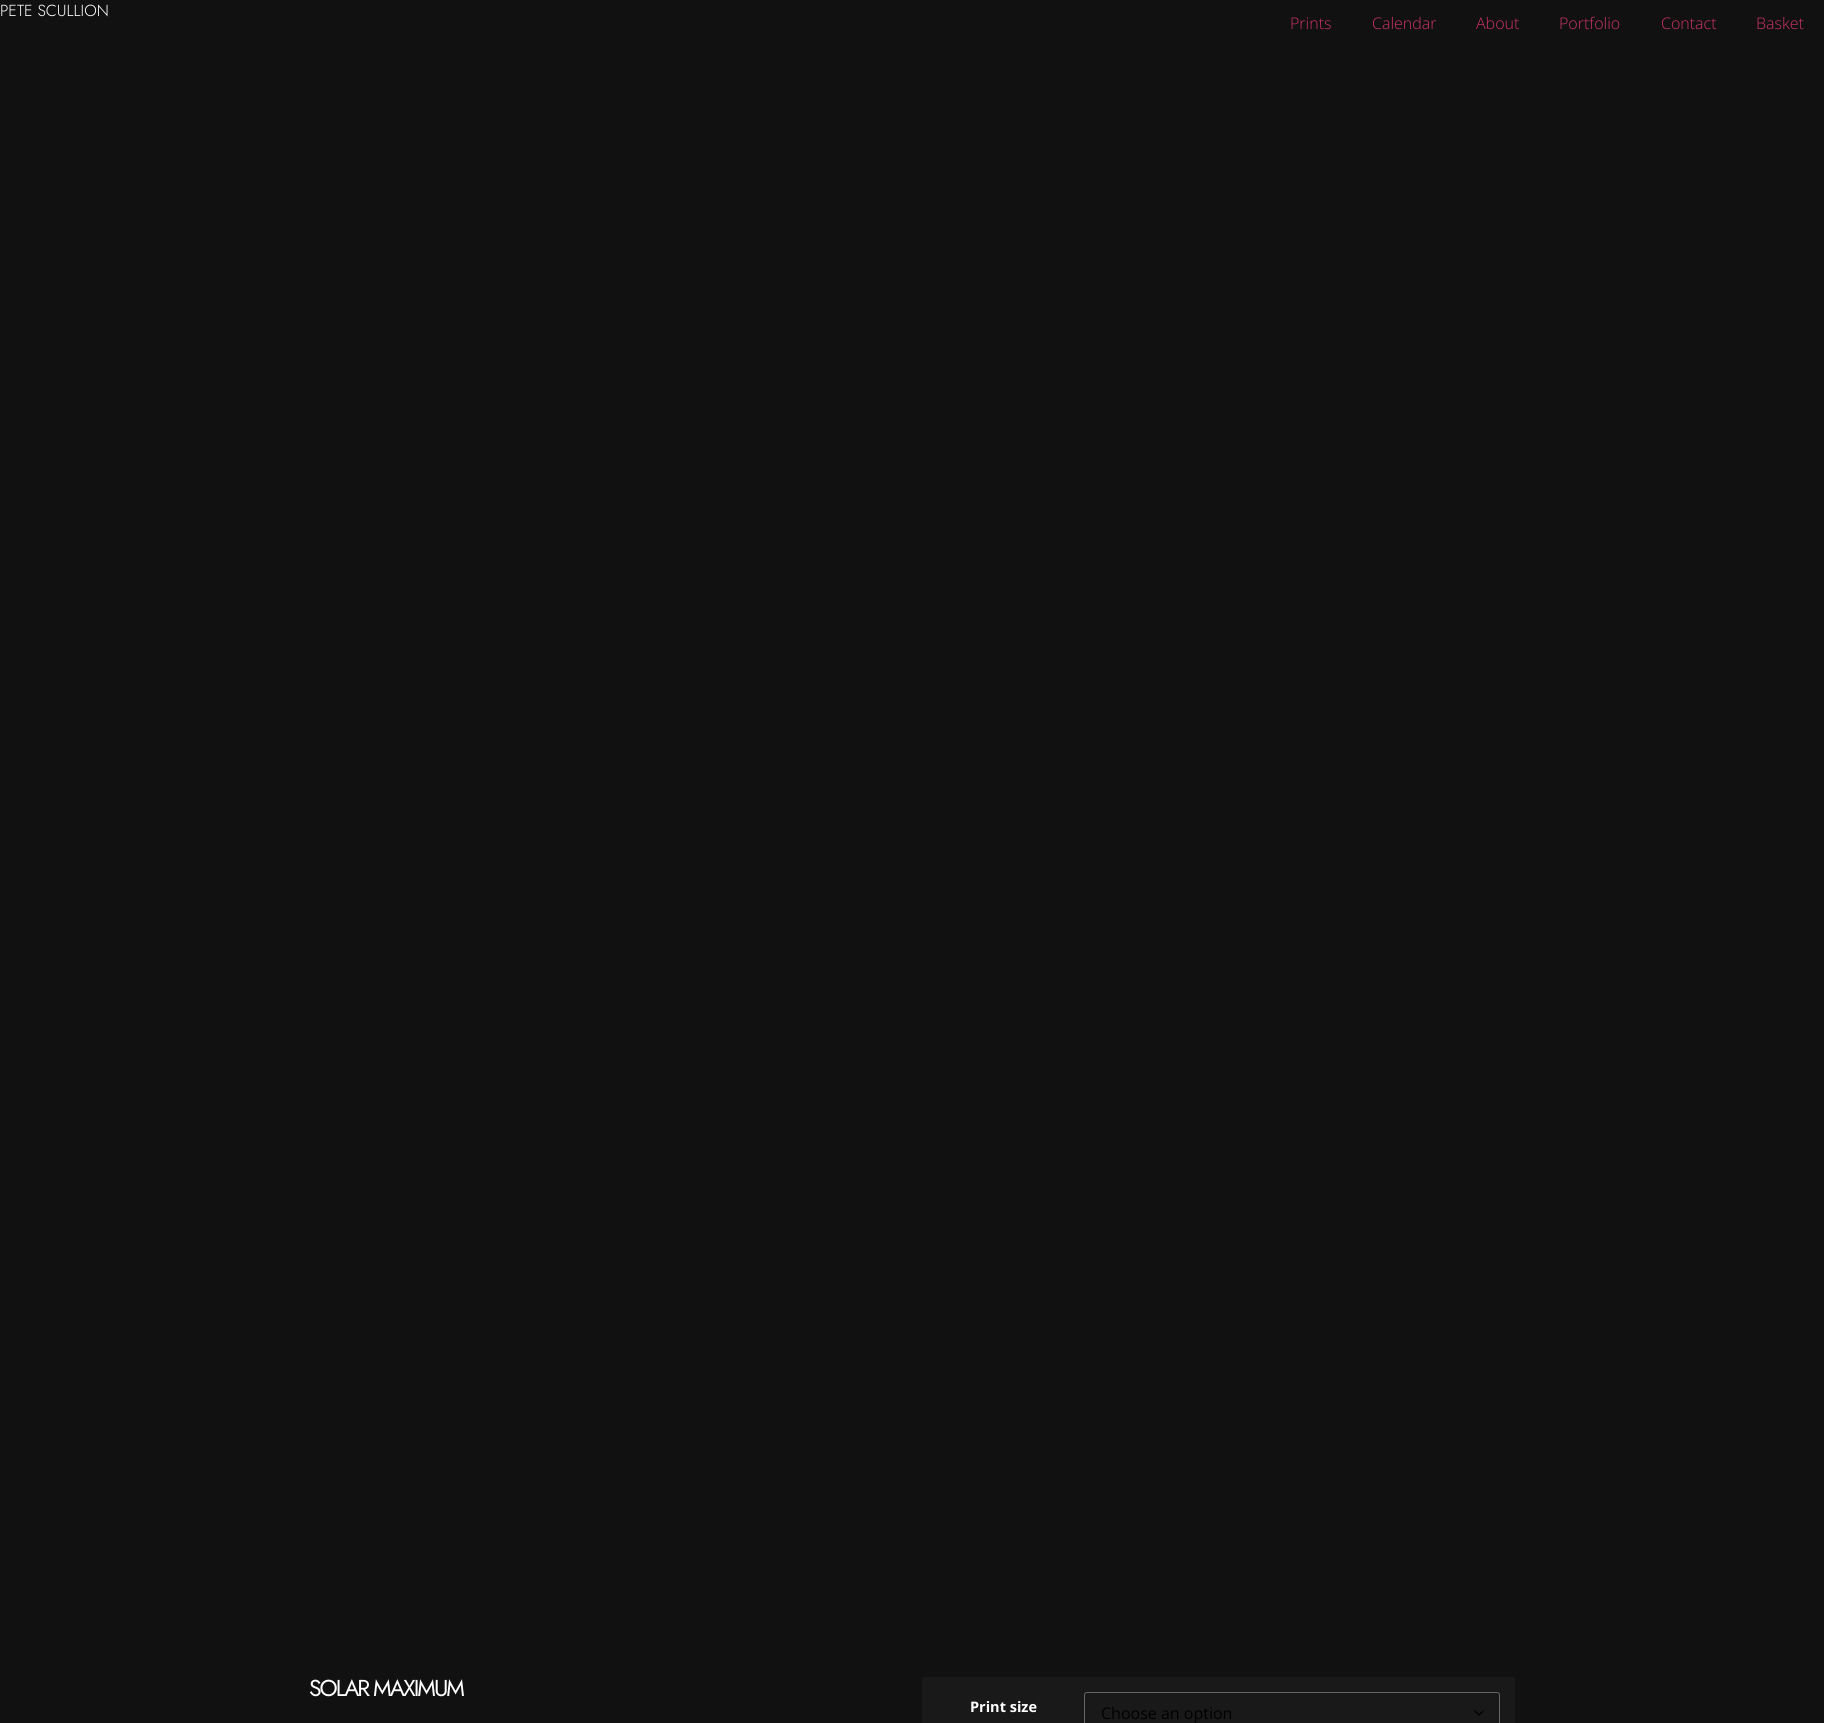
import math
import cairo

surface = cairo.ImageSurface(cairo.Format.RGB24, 1824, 1723)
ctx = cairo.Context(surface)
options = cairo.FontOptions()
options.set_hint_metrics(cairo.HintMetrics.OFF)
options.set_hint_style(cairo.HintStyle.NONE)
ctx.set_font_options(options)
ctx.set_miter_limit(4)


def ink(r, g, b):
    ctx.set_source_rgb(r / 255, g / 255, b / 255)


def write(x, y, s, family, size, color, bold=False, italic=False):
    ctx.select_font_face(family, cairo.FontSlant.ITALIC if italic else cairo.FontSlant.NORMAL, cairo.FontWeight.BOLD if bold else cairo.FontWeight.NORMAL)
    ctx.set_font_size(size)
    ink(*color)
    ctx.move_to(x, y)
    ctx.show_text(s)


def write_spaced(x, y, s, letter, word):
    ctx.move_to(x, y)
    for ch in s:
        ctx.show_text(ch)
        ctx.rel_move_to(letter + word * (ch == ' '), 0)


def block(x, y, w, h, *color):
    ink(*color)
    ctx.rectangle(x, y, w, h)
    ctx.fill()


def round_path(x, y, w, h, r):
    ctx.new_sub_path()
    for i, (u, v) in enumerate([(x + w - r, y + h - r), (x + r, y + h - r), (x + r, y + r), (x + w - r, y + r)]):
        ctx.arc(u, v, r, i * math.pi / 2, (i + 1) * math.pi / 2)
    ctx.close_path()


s1 = dict(family="Jost Light", size=16, color=(255, 255, 255))
s2 = dict(family="Open Sans Light", size=16, color=(204, 51, 102))
s3 = dict(family="Open Sans", size=14.5, color=(255, 255, 255), bold=True)
s4 = dict(family="Open Sans", size=16, color=(0, 0, 0))

ink(17, 17, 17)
ctx.paint()
write(0, 16, "PETE SCULLION", **s1)
write(1290, 29, "Prints", **s2)
write(1372, 29, "Calendar", **s2)
write(1476, 29, "About", **s2)
write(1559, 29, "Portfolio", **s2)
write(1661, 29, "Contact", **s2)
write(1756, 29, "Basket", **s2)
ctx.select_font_face("Jost")
ctx.set_font_size(23)
ink(255, 255, 255)
write_spaced(309, 1696, "SOLAR MAXIMUM", -2, 0)
block(922, 1677, 593, 46, 25, 25, 25)
write(970, 1712, "Print size", **s3)
ctx.new_path()
ctx.move_to(1475, 1711)
ctx.line_to(1479, 1715)
ctx.line_to(1483, 1711)
ink(0, 0, 0)
ctx.set_line_width(1.3)
ctx.set_line_cap(cairo.LineCap.ROUND)
ctx.set_line_join(cairo.LineJoin.ROUND)
ctx.stroke()
round_path(1084.5, 1692.5, 415, 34, 2.5)
ink(102, 102, 102)
ctx.set_line_width(1)
ctx.set_line_cap(cairo.LineCap.BUTT)
ctx.set_line_join(cairo.LineJoin.MITER)
ctx.stroke()
write(1101, 1719, "Choose an option", **s4)
surface.write_to_png("screenshot.png")
